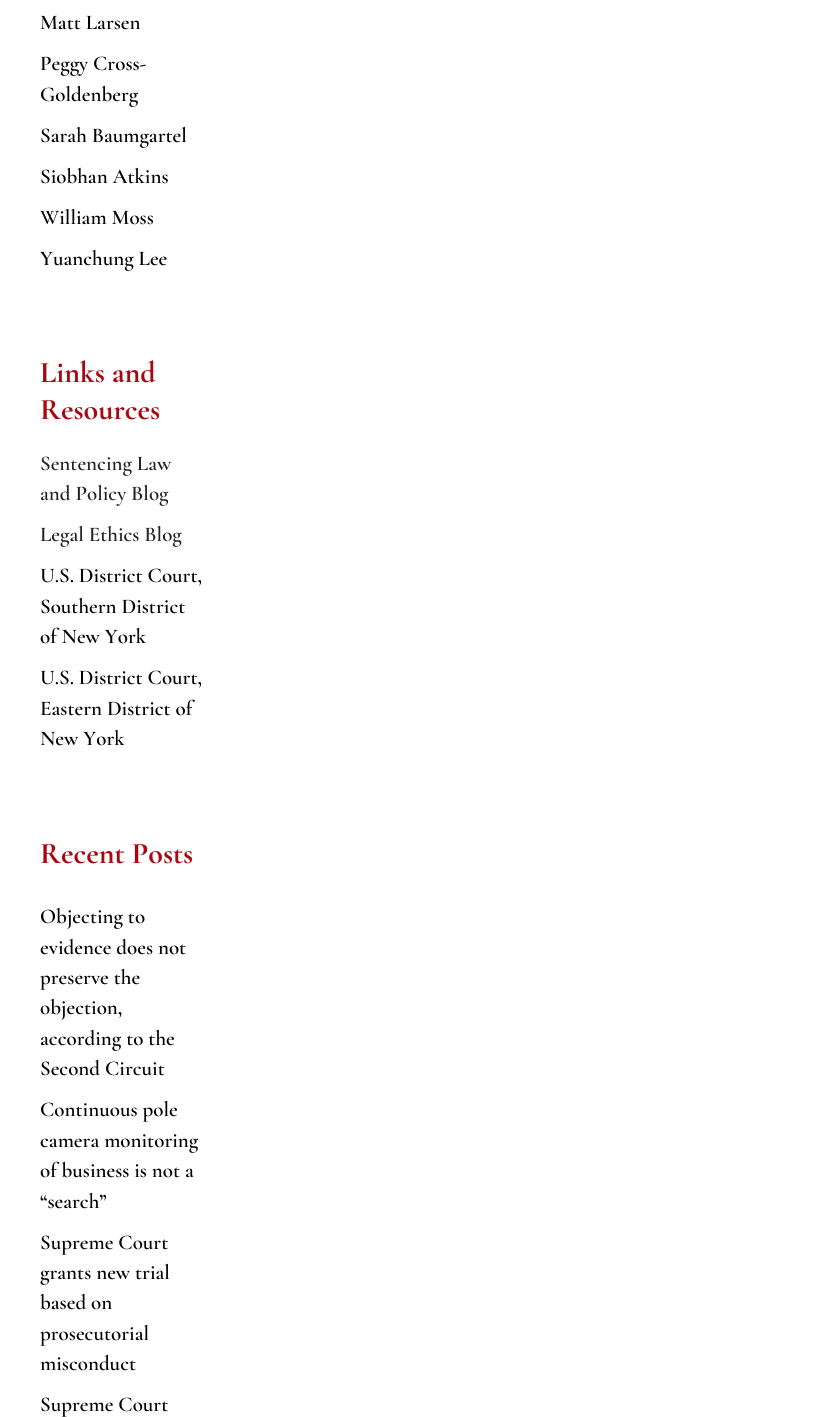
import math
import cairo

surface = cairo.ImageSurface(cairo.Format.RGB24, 813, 1417)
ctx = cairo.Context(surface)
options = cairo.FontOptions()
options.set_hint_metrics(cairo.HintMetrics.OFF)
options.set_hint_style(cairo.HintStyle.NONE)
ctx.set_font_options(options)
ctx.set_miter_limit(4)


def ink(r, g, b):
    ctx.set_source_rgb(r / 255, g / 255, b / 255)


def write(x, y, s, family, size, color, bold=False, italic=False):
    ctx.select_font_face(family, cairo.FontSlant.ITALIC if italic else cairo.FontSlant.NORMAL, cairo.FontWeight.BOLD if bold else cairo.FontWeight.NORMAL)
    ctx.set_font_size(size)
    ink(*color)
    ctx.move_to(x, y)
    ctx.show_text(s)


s1 = dict(family="Cormorant Garamond SemiBold", size=21, color=(0, 0, 0))
s2 = dict(family="Cormorant Garamond", size=30, color=(170, 8, 17), bold=True)
s3 = dict(family="Cormorant Garamond SemiBold", size=21, color=(34, 34, 34))

ink(255, 255, 255)
ctx.paint()
write(40, 29, "Matt Larsen", **s1)
write(40, 70, "Peggy Cross-", **s1)
write(40, 101, "Goldenberg", **s1)
write(40, 142, "Sarah Baumgartel", **s1)
write(40, 183, "Siobhan Atkins", **s1)
write(40, 224, "William Moss", **s1)
write(40, 265, "Yuanchung Lee", **s1)
write(40, 382, "Links and", **s2)
write(40, 419, "Resources", **s2)
write(40, 470, "Sentencing Law", **s3)
write(40, 500, "and Policy Blog", **s3)
write(40, 541, "Legal Ethics Blog", **s3)
write(40, 582, "U.S. District Court,", **s1)
write(40, 613, "Southern District", **s1)
write(40, 643, "of New York", **s1)
write(40, 684, "U.S. District Court,", **s1)
write(40, 715, "Eastern District of", **s1)
write(40, 745, "New York", **s1)
write(40, 863, "Recent Posts", **s2)
write(40, 923, "Objecting to", **s1)
write(40, 954, "evidence does not", **s1)
write(40, 984, "preserve the", **s1)
write(40, 1014, "objection,", **s1)
write(40, 1045, "according to the", **s1)
write(40, 1075, "Second Circuit", **s1)
write(40, 1116, "Continuous pole", **s1)
write(40, 1147, "camera monitoring", **s1)
write(40, 1177, "of business is not a", **s1)
write(40, 1208, "“search”", **s1)
write(40, 1249, "Supreme Court", **s1)
write(40, 1279, "grants new trial", **s1)
write(40, 1309, "based on", **s1)
write(40, 1340, "prosecutorial", **s1)
write(40, 1370, "misconduct", **s1)
write(40, 1411, "Supreme Court", **s1)
surface.write_to_png("screenshot.png")
